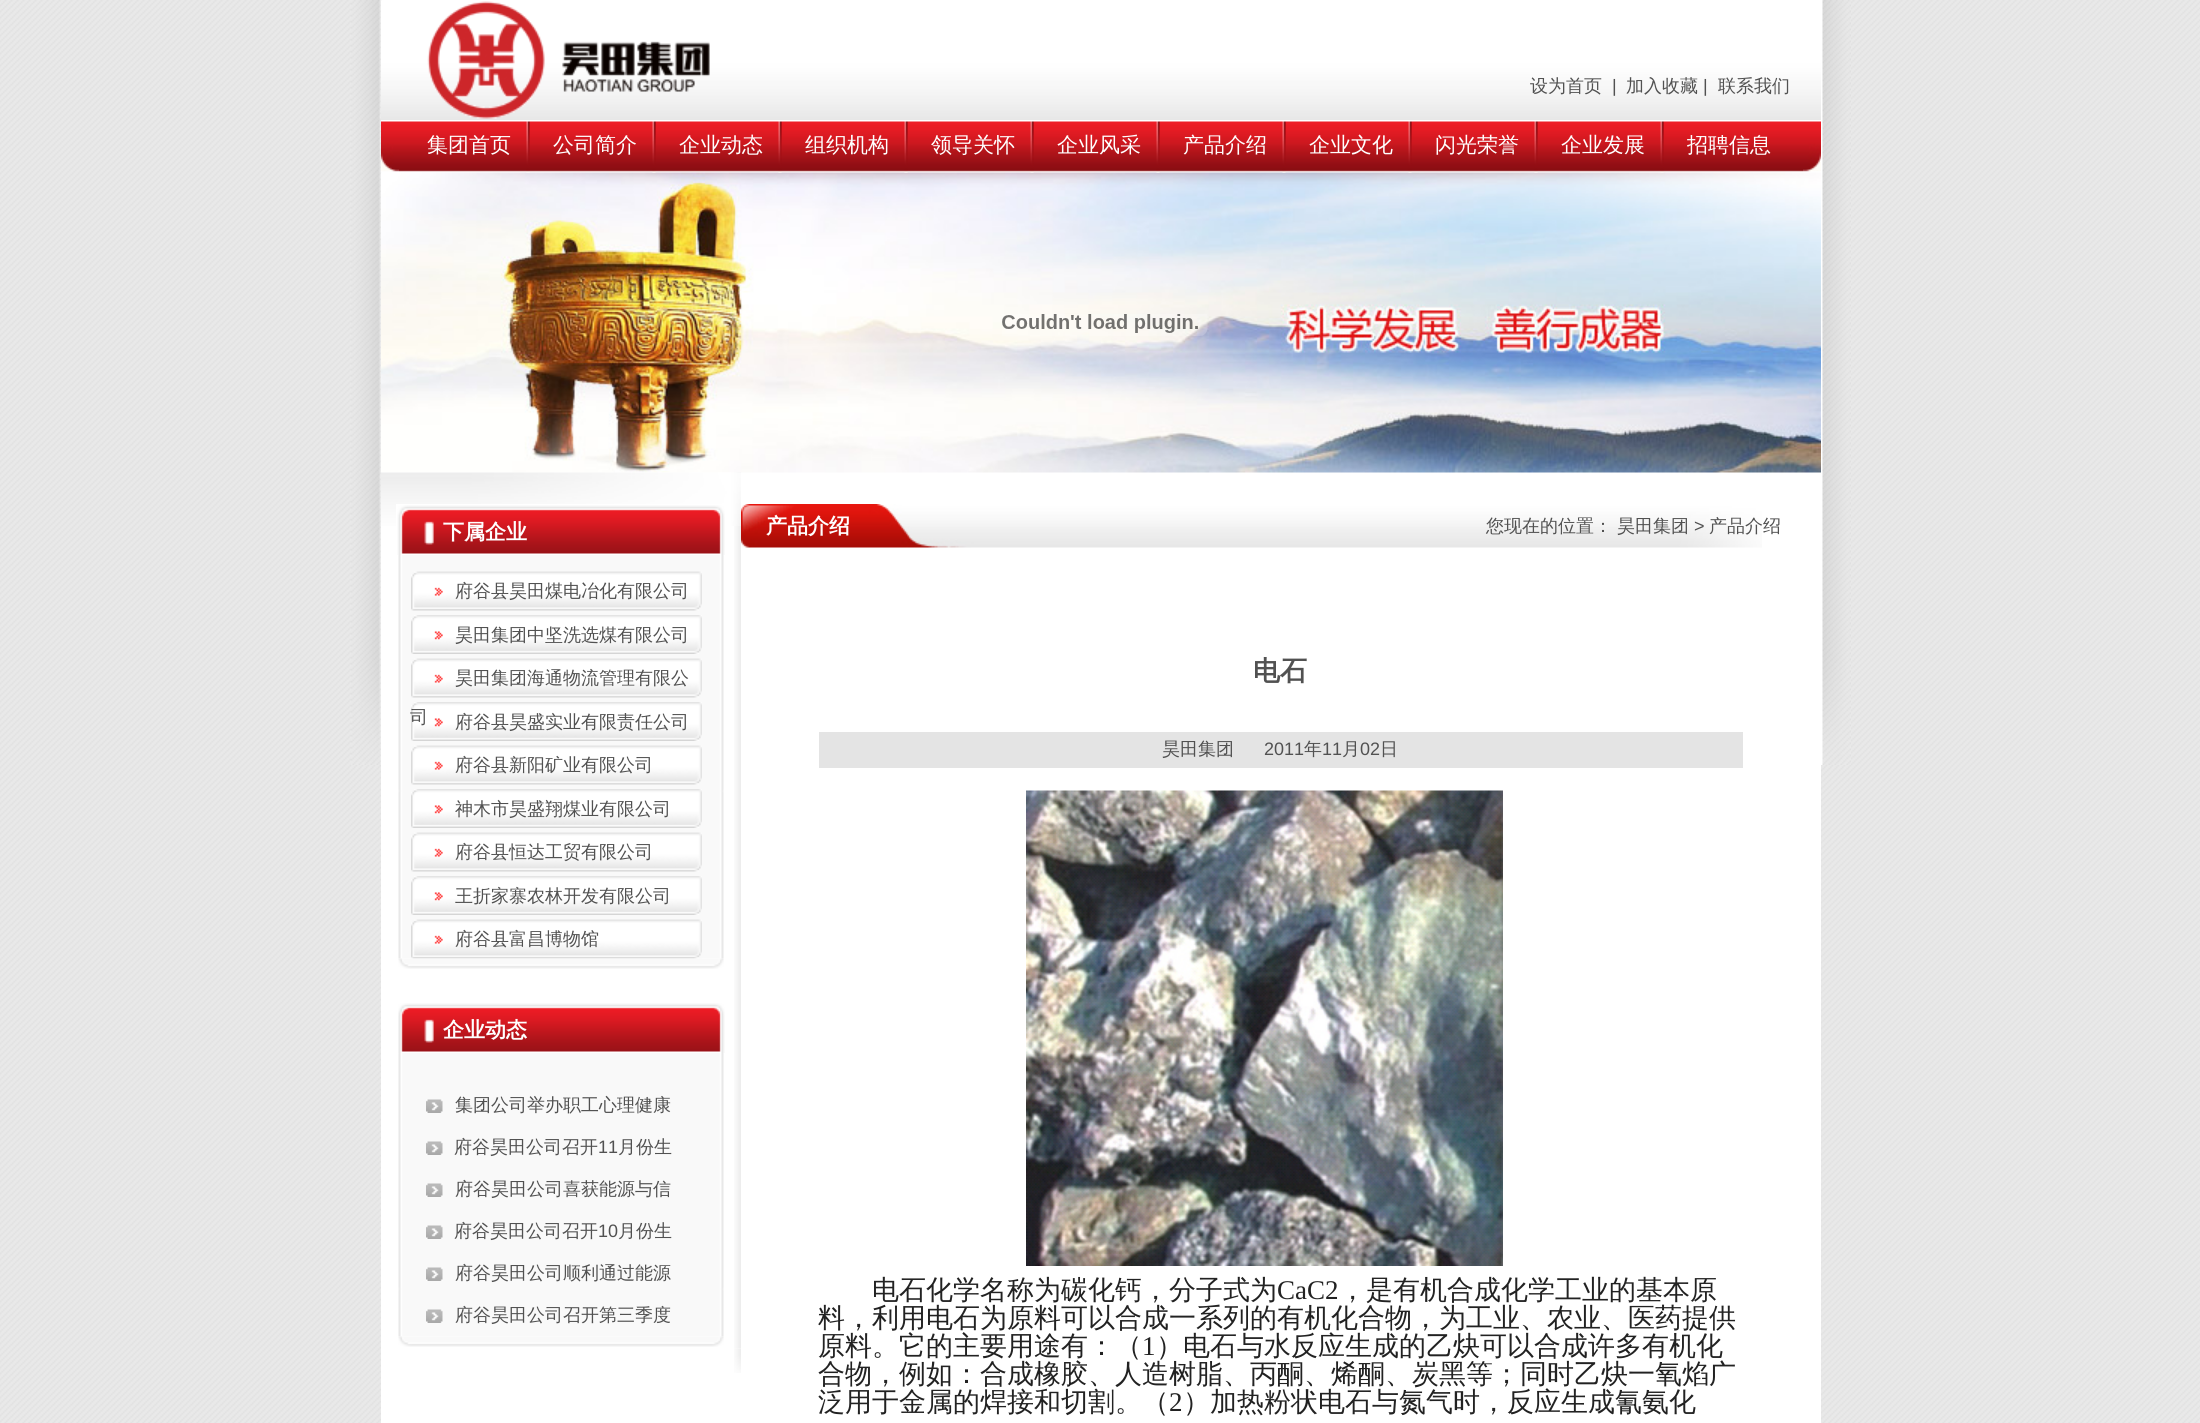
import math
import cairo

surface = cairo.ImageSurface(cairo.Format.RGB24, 2200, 1423)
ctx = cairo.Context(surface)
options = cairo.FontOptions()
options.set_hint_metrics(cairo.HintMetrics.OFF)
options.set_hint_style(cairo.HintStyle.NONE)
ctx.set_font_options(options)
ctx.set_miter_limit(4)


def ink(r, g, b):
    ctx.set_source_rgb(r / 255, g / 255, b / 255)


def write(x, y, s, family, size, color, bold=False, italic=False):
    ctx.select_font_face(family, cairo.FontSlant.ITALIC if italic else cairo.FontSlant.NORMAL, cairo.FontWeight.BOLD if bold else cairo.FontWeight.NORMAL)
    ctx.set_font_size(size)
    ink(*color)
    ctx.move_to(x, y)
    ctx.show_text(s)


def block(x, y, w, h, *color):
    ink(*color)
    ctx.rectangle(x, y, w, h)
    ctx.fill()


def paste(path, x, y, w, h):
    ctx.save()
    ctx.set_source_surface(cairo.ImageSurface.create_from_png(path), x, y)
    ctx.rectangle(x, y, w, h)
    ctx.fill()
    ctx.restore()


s1 = dict(family="WenQuanYi Zen Hei Medium", size=18, color=(81, 81, 81))
s2 = dict(family="Liberation Sans", size=18, color=(81, 81, 81))
s3 = dict(family="WenQuanYi Zen Hei Medium", size=21, color=(255, 255, 255))
s4 = dict(family="WenQuanYi Zen Hei", size=21, color=(255, 255, 255), bold=True)
s5 = dict(family="WenQuanYi Zen Hei", size=27, color=(81, 81, 81), bold=True)
s6 = dict(family="WenQuanYi Zen Hei Medium", size=27, color=(34, 34, 34))
s7 = dict(family="Liberation Serif", size=27, color=(34, 34, 34))

ink(255, 255, 255)
ctx.paint()
paste("pic1.png", 0, 0, 2200, 1423)
paste("pic2.png", 351, 0, 1500, 765)
paste("pic3.png", 381, 1, 1440, 119)
paste("pic4.png", 427, 1, 283, 118)
write(1530, 92, "设为首页", **s1)
write(1612, 92, "|", **s2)
write(1626, 92, "加入收藏", **s1)
write(1703, 92, "|", **s2)
write(1718, 92, "联系我们", **s1)
paste("pic5.png", 381, 120, 18, 52)
paste("pic6.png", 399, 121, 1404, 51)
paste("pic18.png", 381, 172, 1440, 301)
paste("pic7.png", 526, 121, 4, 52)
write(427, 152, "集团首页", **s3)
paste("pic8.png", 652, 121, 4, 52)
write(553, 152, "公司简介", **s3)
paste("pic9.png", 778, 121, 4, 52)
write(679, 152, "企业动态", **s3)
paste("pic10.png", 904, 121, 4, 52)
write(805, 152, "组织机构", **s3)
paste("pic11.png", 1030, 121, 4, 52)
write(931, 152, "领导关怀", **s3)
paste("pic12.png", 1156, 121, 4, 52)
write(1057, 152, "企业风采", **s3)
paste("pic13.png", 1282, 121, 4, 52)
write(1183, 152, "产品介绍", **s3)
paste("pic14.png", 1408, 121, 4, 52)
write(1309, 152, "企业文化", **s3)
paste("pic15.png", 1534, 121, 4, 52)
write(1435, 152, "闪光荣誉", **s3)
paste("pic16.png", 1660, 121, 4, 52)
write(1561, 152, "企业发展", **s3)
write(1687, 152, "招聘信息", **s3)
paste("pic17.png", 1803, 121, 18, 51)
paste("pic19.png", 1002, 314, 206, 22)
block(381, 473, 1440, 950, 255, 255, 255)
paste("pic20.png", 734, 472, 7, 877)
paste("pic21.png", 381, 472, 360, 54)
paste("pic22.png", 396, 504, 329, 51)
write(443, 539, "下属企业", **s4)
paste("pic23.png", 398, 555, 326, 404)
paste("pic24.png", 411, 571, 291, 40)
write(455, 597, "府谷县昊田煤电冶化有限公司", **s1)
paste("pic25.png", 411, 615, 291, 39)
write(455, 641, "昊田集团中坚洗选煤有限公司", **s1)
paste("pic24.png", 411, 658, 291, 40)
write(455, 684, "昊田集团海通物流管理有限公", **s1)
paste("pic25.png", 411, 702, 291, 39)
write(410, 723, "司", **s1)
write(455, 728, "府谷县昊盛实业有限责任公司", **s1)
paste("pic24.png", 411, 745, 291, 40)
write(455, 771, "府谷县新阳矿业有限公司", **s1)
paste("pic25.png", 411, 789, 291, 39)
write(455, 815, "神木市昊盛翔煤业有限公司", **s1)
paste("pic24.png", 411, 832, 291, 40)
write(455, 858, "府谷县恒达工贸有限公司", **s1)
paste("pic25.png", 411, 876, 291, 39)
write(455, 902, "王折家寨农林开发有限公司", **s1)
paste("pic26.png", 411, 919, 291, 40)
write(455, 945, "府谷县富昌博物馆", **s1)
paste("pic27.png", 398, 958, 326, 11)
paste("pic28.png", 398, 1003, 327, 50)
write(443, 1037, "企业动态", **s4)
paste("pic29.png", 398, 1053, 326, 284)
paste("pic30.png", 426, 1099, 17, 14)
write(455, 1111, "集团公司举办职工心理健康", **s1)
paste("pic30.png", 426, 1141, 17, 14)
write(454, 1153, "府谷昊田公司召开", **s1)
write(598, 1153, "11", **s2)
write(618, 1153, "月份生", **s1)
paste("pic30.png", 426, 1183, 17, 14)
write(455, 1195, "府谷昊田公司喜获能源与信", **s1)
paste("pic30.png", 426, 1225, 17, 14)
write(454, 1237, "府谷昊田公司召开", **s1)
write(598, 1237, "10", **s2)
write(618, 1237, "月份生", **s1)
paste("pic30.png", 426, 1267, 17, 14)
write(455, 1279, "府谷昊田公司顺利通过能源", **s1)
paste("pic30.png", 426, 1309, 17, 14)
write(455, 1321, "府谷昊田公司召开第三季度", **s1)
paste("pic31.png", 398, 1336, 326, 11)
paste("pic32.png", 734, 1348, 7, 25)
paste("pic33.png", 741, 504, 1021, 44)
write(766, 533, "产品介绍", **s4)
write(1486, 532, "您现在的位置：", **s1)
write(1617, 532, "昊田集团", **s1)
write(1694, 532, ">", **s2)
write(1709, 532, "产品介绍", **s1)
write(1253, 680, "电石", **s5)
block(819, 732, 924, 36, 228, 228, 228)
write(1162, 755, "昊田集团", **s1)
write(1264, 755, "2011", **s2)
write(1304, 755, "年", **s1)
write(1322, 755, "11", **s2)
write(1342, 755, "月", **s1)
write(1360, 755, "02", **s2)
write(1380, 755, "日", **s1)
paste("pic34.png", 1026, 790, 477, 476)
write(872, 1299, "电石化学名称为碳化钙，分子式为", **s6)
write(1277, 1299, "CaC2", **s7)
write(1339, 1299, "，是有机合成化学工业的基本原", **s6)
write(818, 1327, "料，利用电石为原料可以合成一系列的有机化合物，为工业、农业、医药提供", **s6)
write(818, 1355, "原料。它的主要用途有：（", **s6)
write(1142, 1355, "1", **s7)
write(1156, 1355, "）电石与水反应生成的乙炔可以合成许多有机化", **s6)
write(818, 1383, "合物，例如：合成橡胶、人造树脂、丙酮、烯酮、炭黑等；同时乙炔一氧焰广", **s6)
write(818, 1411, "泛用于金属的焊接和切割。（", **s6)
write(1169, 1411, "2", **s7)
write(1183, 1411, "）加热粉状电石与氮气时，反应生成氰氨化", **s6)
surface.write_to_png("screenshot.png")
